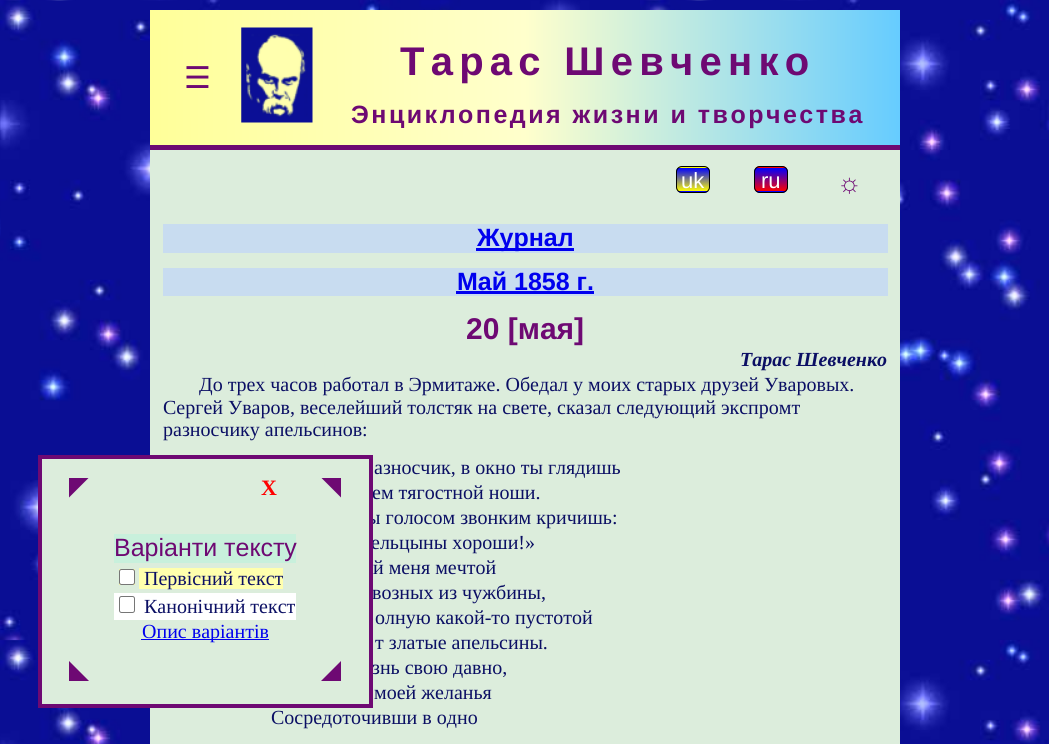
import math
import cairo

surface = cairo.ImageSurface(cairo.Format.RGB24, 1049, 744)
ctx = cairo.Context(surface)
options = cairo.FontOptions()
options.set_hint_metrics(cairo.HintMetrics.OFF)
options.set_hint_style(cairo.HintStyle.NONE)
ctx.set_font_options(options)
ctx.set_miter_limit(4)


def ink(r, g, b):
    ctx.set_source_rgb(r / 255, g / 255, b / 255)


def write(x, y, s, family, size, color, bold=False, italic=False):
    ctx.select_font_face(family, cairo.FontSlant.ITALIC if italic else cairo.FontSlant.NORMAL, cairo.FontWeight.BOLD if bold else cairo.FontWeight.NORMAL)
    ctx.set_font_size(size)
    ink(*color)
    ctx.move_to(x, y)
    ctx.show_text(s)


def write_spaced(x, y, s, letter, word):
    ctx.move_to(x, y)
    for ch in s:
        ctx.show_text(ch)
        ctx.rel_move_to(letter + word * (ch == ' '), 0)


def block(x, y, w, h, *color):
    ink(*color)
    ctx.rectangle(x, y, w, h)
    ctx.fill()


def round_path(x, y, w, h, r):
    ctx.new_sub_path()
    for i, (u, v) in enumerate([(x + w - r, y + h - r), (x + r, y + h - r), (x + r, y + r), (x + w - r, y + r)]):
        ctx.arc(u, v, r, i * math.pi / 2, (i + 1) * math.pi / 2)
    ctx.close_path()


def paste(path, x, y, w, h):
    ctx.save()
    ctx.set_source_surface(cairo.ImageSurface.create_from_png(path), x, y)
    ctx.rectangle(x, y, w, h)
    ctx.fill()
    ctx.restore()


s1 = dict(family="DejaVu Sans", size=30, color=(110, 9, 115))
s2 = dict(family="Liberation Sans", size=22, color=(255, 255, 255))
s3 = dict(family="Liberation Serif", size=27, color=(110, 9, 115), bold=True)
s4 = dict(family="Liberation Sans", size=25, color=(0, 0, 238), bold=True)
s5 = dict(family="Liberation Sans", size=30, color=(110, 9, 115), bold=True)
s6 = dict(family="Liberation Serif", size=20, color=(11, 15, 100), bold=True, italic=True)
s7 = dict(family="Liberation Serif", size=20, color=(11, 15, 100))
s8 = dict(family="Liberation Serif", size=22, color=(255, 0, 0), bold=True)
s9 = dict(family="Liberation Sans", size=25, color=(110, 9, 115))
s10 = dict(family="Liberation Serif", size=20, color=(0, 0, 238))

ink(255, 255, 255)
ctx.paint()
paste("pic1.png", 0, 0, 1049, 744)
gradient = cairo.LinearGradient(150, 78, 900, 77)
gradient.add_color_stop_rgba(0, 1, 1, 0.6, 1)
gradient.add_color_stop_rgba(0.5, 1, 1, 0.8, 1)
gradient.add_color_stop_rgba(1, 0.4, 0.8, 1, 1)
ctx.set_source(gradient)
ctx.rectangle(150, 10, 750, 135)
ctx.fill()
block(150, 145, 750, 5, 110, 9, 115)
write(184, 88, "☰", **s1)
paste("pic2.png", 241, 27, 72, 96)
ctx.select_font_face("Liberation Sans", cairo.FontSlant.NORMAL, cairo.FontWeight.BOLD)
ctx.set_font_size(40)
write_spaced(400, 75, "Тарас Шевченко", 6.25, 0)
ctx.set_font_size(25)
write_spaced(351, 123, "Энциклопедия жизни и творчества", 2.5, 0)
block(150, 150, 750, 594, 220, 237, 220)
ctx.save()
round_path(676, 166, 34, 27, 6)
ctx.clip()
gradient = cairo.LinearGradient(693, 144, 693, 168)
gradient.add_color_stop_rgba(0, 0, 0, 1, 1)
gradient.add_color_stop_rgba(1, 1, 1, 0, 1)
ctx.set_source(gradient)
ctx.rectangle(676, 166, 34, 2)
ctx.fill()
gradient = cairo.LinearGradient(693, 168, 693, 191)
gradient.add_color_stop_rgba(0, 0, 0, 1, 1)
gradient.add_color_stop_rgba(1, 1, 1, 0, 1)
ctx.set_source(gradient)
ctx.rectangle(676, 168, 34, 23)
ctx.fill()
gradient = cairo.LinearGradient(693, 191, 693, 215)
gradient.add_color_stop_rgba(0, 0, 0, 1, 1)
gradient.add_color_stop_rgba(1, 1, 1, 0, 1)
ctx.set_source(gradient)
ctx.rectangle(676, 191, 34, 2)
ctx.fill()
ctx.restore()
round_path(676.5, 166.5, 33, 26, 5.5)
ink(0, 0, 0)
ctx.set_line_width(1)
ctx.stroke()
write(681, 188, "uk", **s2)
ctx.save()
round_path(754, 166, 34, 27, 6)
ctx.clip()
gradient = cairo.LinearGradient(771, 144, 771, 168)
gradient.add_color_stop_rgba(0, 0, 0, 1, 1)
gradient.add_color_stop_rgba(1, 1, 0, 0, 1)
ctx.set_source(gradient)
ctx.rectangle(754, 166, 34, 2)
ctx.fill()
gradient = cairo.LinearGradient(771, 168, 771, 191)
gradient.add_color_stop_rgba(0, 0, 0, 1, 1)
gradient.add_color_stop_rgba(1, 1, 0, 0, 1)
ctx.set_source(gradient)
ctx.rectangle(754, 168, 34, 23)
ctx.fill()
gradient = cairo.LinearGradient(771, 191, 771, 215)
gradient.add_color_stop_rgba(0, 0, 0, 1, 1)
gradient.add_color_stop_rgba(1, 1, 0, 0, 1)
ctx.set_source(gradient)
ctx.rectangle(754, 191, 34, 2)
ctx.fill()
ctx.restore()
round_path(754.5, 166.5, 33, 26, 5.5)
ink(0, 0, 0)
ctx.stroke()
write(761, 188, "ru", **s2)
write(837, 192, "☼", **s3)
block(163, 224, 725, 29, 200, 220, 240)
block(476, 248, 98, 3, 0, 0, 238)
write(477, 246, "Журнал", **s4)
block(163, 268, 725, 28, 200, 220, 240)
write(457, 290, "Май 1858 г.", **s4)
block(456, 291, 138, 3, 0, 0, 238)
write(466, 339, "20 [мая]", **s5)
write(740, 366, "Тарас Шевченко", **s6)
write(199, 391, "До трех часов работал в Эрмитаже. Обедал у моих старых друзей Уваровых.", **s7)
write(163, 414, "Сергей Уваров, веселейший толстяк на свете, сказал следующий экспромт", **s7)
write(163, 436, "разносчику апельсинов:", **s7)
write(374, 474, "азносчик, в окно ты глядишь", **s7)
write(372, 499, "ем тягостной ноши.", **s7)
write(367, 524, "ы голосом звонким кричишь:", **s7)
write(371, 549, "ельцыны хороши!»", **s7)
write(372, 599, "возных из чужбины,", **s7)
write(372, 674, "знь свою давно,", **s7)
ink(220, 237, 220)
ctx.rectangle(40, 457, 331, 249)
ctx.fill_preserve()
ink(110, 9, 115)
ctx.set_line_width(4)
ctx.stroke()
ctx.save()
ctx.rectangle(69, 478, 20, 20)
ctx.clip()
ctx.new_path()
ctx.move_to(69, 497.5)
ctx.line_to(69, 477.5)
ctx.line_to(89, 477.5)
ctx.close_path()
ctx.fill()
ctx.restore()
write(261, 495, "X", **s8)
ctx.save()
ctx.rectangle(321, 478, 20, 20)
ctx.clip()
ink(110, 9, 115)
ctx.new_path()
ctx.move_to(341, 497.5)
ctx.line_to(321, 477.5)
ctx.line_to(341, 477.5)
ctx.close_path()
ctx.fill()
ctx.restore()
block(114, 534, 182, 29, 200, 240, 220)
write(114, 556, "Варіанти тексту", **s9)
block(119, 569, 16, 16, 255, 255, 173)
block(139, 568, 144, 21, 255, 255, 173)
ink(255, 255, 255)
round_path(119.5, 569.5, 15, 15, 2)
ctx.fill_preserve()
ink(118, 118, 118)
ctx.set_line_width(1)
ctx.stroke()
write(144, 585, "Первісний текст", **s7)
block(114, 593, 182, 27, 255, 255, 255)
round_path(119.5, 596.5, 15, 16, 2)
ink(118, 118, 118)
ctx.stroke()
write(144, 613, "Канонічний текст", **s7)
block(141, 639, 128, 1, 0, 0, 238)
write(142, 638, "Опис варіантів", **s10)
ink(110, 9, 115)
ctx.new_path()
ctx.move_to(69, 661)
ctx.line_to(89, 681)
ctx.line_to(69, 681)
ctx.close_path()
ctx.fill()
ctx.new_path()
ctx.move_to(341, 661)
ctx.line_to(341, 681)
ctx.line_to(321, 681)
ctx.close_path()
ctx.fill()
write(373, 574, "й меня мечтой", **s7)
write(375, 624, "олную какой-то пустотой", **s7)
write(375, 649, "т златые апельсины.", **s7)
write(374, 699, "моей желанья", **s7)
write(271, 724, "Сосредоточивши в одно", **s7)
surface.write_to_png("screenshot.png")
